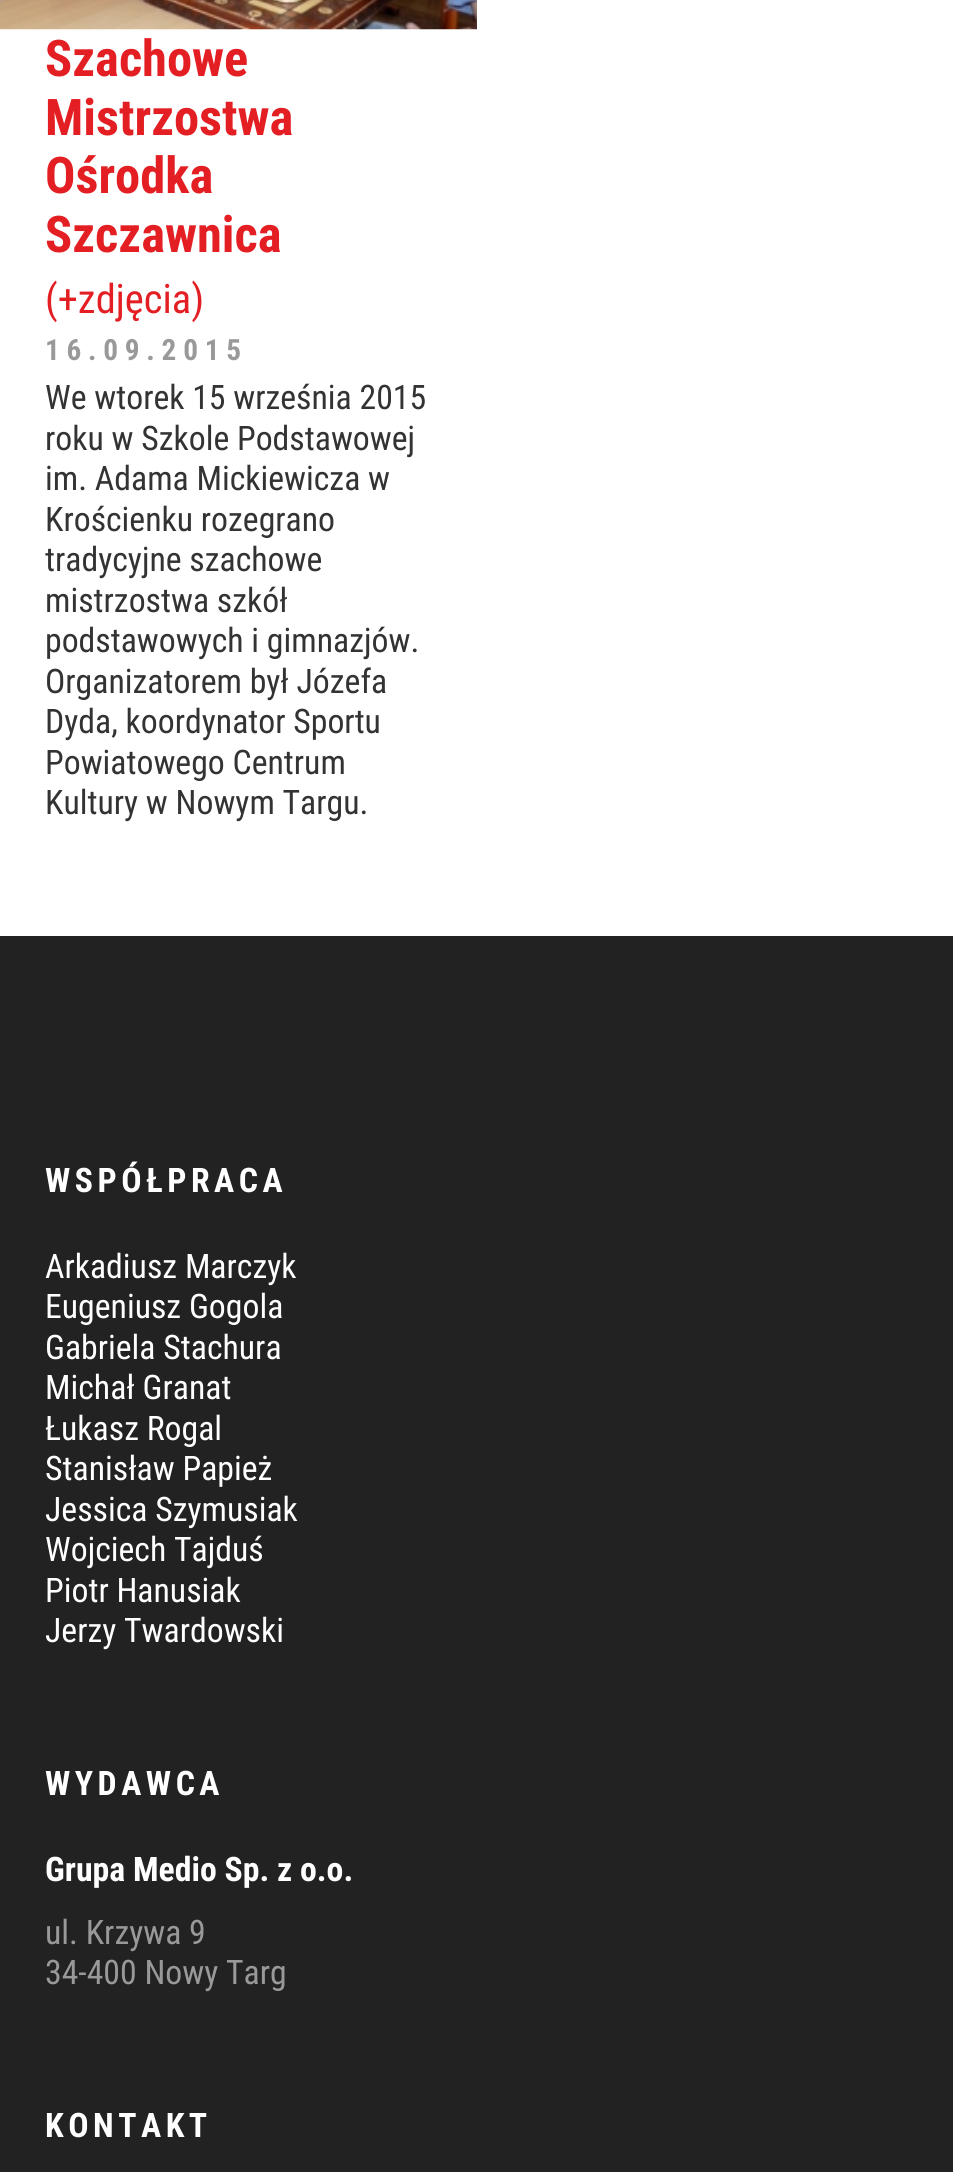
import math
import cairo

surface = cairo.ImageSurface(cairo.Format.RGB24, 953, 2172)
ctx = cairo.Context(surface)
options = cairo.FontOptions()
options.set_hint_metrics(cairo.HintMetrics.OFF)
options.set_hint_style(cairo.HintStyle.NONE)
ctx.set_font_options(options)
ctx.set_miter_limit(4)


def ink(r, g, b):
    ctx.set_source_rgb(r / 255, g / 255, b / 255)


def write(x, y, s, family, size, color, bold=False, italic=False):
    ctx.select_font_face(family, cairo.FontSlant.ITALIC if italic else cairo.FontSlant.NORMAL, cairo.FontWeight.BOLD if bold else cairo.FontWeight.NORMAL)
    ctx.set_font_size(size)
    ink(*color)
    ctx.move_to(x, y)
    ctx.show_text(s)


def write_spaced(x, y, s, letter, word):
    ctx.move_to(x, y)
    for ch in s:
        ctx.show_text(ch)
        ctx.rel_move_to(letter + word * (ch == ' '), 0)


def block(x, y, w, h, *color):
    ink(*color)
    ctx.rectangle(x, y, w, h)
    ctx.fill()


def paste(path, x, y, w, h):
    ctx.save()
    ctx.set_source_surface(cairo.ImageSurface.create_from_png(path), x, y)
    ctx.rectangle(x, y, w, h)
    ctx.fill()
    ctx.restore()


s1 = dict(family="Roboto Condensed", size=50.5, color=(227, 31, 36), bold=True)
s2 = dict(family="Roboto Condensed", size=40.5, color=(227, 31, 36))
s3 = dict(family="Roboto Condensed", size=33.75, color=(51, 51, 51))
s4 = dict(family="Roboto Condensed", size=33.75, color=(255, 255, 255))
s5 = dict(family="Roboto Condensed", size=33.75, color=(255, 255, 255), bold=True)
s6 = dict(family="Roboto Condensed", size=33.75, color=(153, 153, 153))

ink(255, 255, 255)
ctx.paint()
paste("pic1.png", 0, 0, 477, 30)
write(45, 76, "Szachowe", **s1)
write(45, 135, "Mistrzostwa", **s1)
write(45, 193, "Ośrodka", **s1)
write(45, 252, "Szczawnica", **s1)
write(45, 313, "(+zdjęcia)", **s2)
ctx.select_font_face("Roboto Condensed", cairo.FontSlant.NORMAL, cairo.FontWeight.BOLD)
ctx.set_font_size(29.25)
ink(153, 153, 153)
write_spaced(45, 360, "16.09.2015", 6.75, 0)
write(45, 409, "We wtorek 15 września 2015", **s3)
write(45, 450, "roku w Szkole Podstawowej", **s3)
write(45, 490, "im. Adama Mickiewicza w", **s3)
write(45, 531, "Krościenku rozegrano", **s3)
write(45, 571, "tradycyjne szachowe", **s3)
write(45, 612, "mistrzostwa szkół", **s3)
write(45, 652, "podstawowych i gimnazjów.", **s3)
write(45, 693, "Organizatorem był Józefa", **s3)
write(45, 733, "Dyda, koordynator Sportu", **s3)
write(45, 774, "Powiatowego Centrum", **s3)
write(45, 814, "Kultury w Nowym Targu.", **s3)
block(0, 936, 953, 1236, 34, 34, 34)
ctx.select_font_face("Roboto Condensed", cairo.FontSlant.NORMAL, cairo.FontWeight.BOLD)
ink(255, 255, 255)
write_spaced(45, 1192, "WSPÓŁPRACA", 4.5, 0)
write(45, 1278, "Arkadiusz Marczyk", **s4)
write(45, 1318, "Eugeniusz Gogola", **s4)
write(45, 1359, "Gabriela Stachura", **s4)
write(45, 1399, "Michał Granat", **s4)
write(45, 1440, "Łukasz Rogal", **s4)
write(45, 1480, "Stanisław Papież", **s4)
write(45, 1521, "Jessica Szymusiak", **s4)
write(45, 1561, "Wojciech Tajduś", **s4)
write(45, 1602, "Piotr Hanusiak", **s4)
write(45, 1642, "Jerzy Twardowski", **s4)
ctx.select_font_face("Roboto Condensed", cairo.FontSlant.NORMAL, cairo.FontWeight.BOLD)
write_spaced(45, 1795, "WYDAWCA", 4.5, 0)
write(45, 1881, "Grupa Medio Sp. z o.o.", **s5)
write(45, 1944, "ul. Krzywa 9", **s6)
write(45, 1984, "34-400 Nowy Targ", **s6)
ctx.select_font_face("Roboto Condensed", cairo.FontSlant.NORMAL, cairo.FontWeight.BOLD)
ink(255, 255, 255)
write_spaced(45, 2137, "KONTAKT", 4.5, 0)
surface.write_to_png("screenshot.png")
